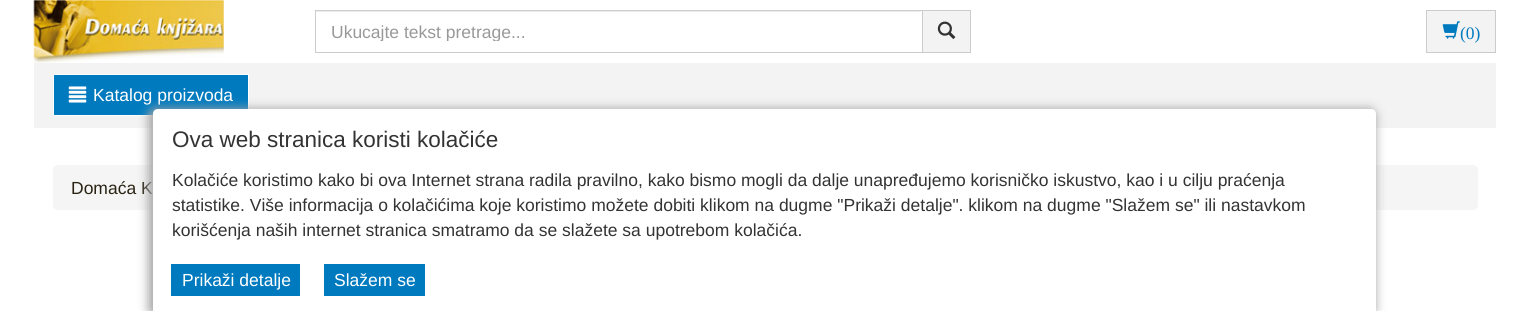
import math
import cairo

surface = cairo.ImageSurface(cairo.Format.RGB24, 1529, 311)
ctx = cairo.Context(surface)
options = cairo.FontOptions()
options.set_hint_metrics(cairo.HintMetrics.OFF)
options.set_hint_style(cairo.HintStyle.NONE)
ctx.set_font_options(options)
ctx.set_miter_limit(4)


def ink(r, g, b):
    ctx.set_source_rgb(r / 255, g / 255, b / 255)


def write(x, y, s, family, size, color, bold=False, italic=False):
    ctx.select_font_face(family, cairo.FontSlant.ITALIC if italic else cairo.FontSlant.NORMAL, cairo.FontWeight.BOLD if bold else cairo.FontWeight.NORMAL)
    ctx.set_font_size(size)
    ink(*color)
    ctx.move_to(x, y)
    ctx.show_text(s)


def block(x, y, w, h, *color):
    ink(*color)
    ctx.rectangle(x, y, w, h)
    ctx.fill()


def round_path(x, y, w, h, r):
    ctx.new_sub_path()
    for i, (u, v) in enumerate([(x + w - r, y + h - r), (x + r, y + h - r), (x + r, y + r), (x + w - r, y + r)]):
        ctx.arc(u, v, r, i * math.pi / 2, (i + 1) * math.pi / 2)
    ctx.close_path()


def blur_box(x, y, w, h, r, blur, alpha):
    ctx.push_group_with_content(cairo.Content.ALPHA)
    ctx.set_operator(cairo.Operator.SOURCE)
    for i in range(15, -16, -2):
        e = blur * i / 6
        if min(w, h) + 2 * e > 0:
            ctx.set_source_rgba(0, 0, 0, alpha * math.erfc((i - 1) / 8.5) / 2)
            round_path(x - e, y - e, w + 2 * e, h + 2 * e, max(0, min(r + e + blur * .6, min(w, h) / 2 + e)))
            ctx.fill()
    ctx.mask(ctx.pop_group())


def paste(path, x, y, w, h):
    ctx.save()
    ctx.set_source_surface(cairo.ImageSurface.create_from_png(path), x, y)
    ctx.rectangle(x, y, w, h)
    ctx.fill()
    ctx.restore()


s1 = dict(family="Liberation Sans", size=17.5, color=(153, 153, 153))
s2 = dict(family="Liberation Serif", size=17.5, color=(0, 122, 190))
s3 = dict(family="Liberation Sans", size=17.5, color=(255, 255, 255))
s4 = dict(family="Liberation Sans", size=17.5, color=(42, 36, 21))
s5 = dict(family="Liberation Sans", size=22.5, color=(51, 51, 51))
s6 = dict(family="Liberation Sans", size=17.5, color=(51, 51, 51))

ink(255, 255, 255)
ctx.paint()
paste("pic1.png", 33, 0, 191, 63)
block(923, 11, 47, 41, 243, 243, 243)
ctx.rectangle(921.5, 10.5, 49, 42)
ink(204, 204, 204)
ctx.set_line_width(1)
ctx.stroke()
block(921, 11, 1, 41, 255, 255, 255)
block(316, 11, 605, 1, 236, 236, 236)
ctx.rectangle(315.5, 10.5, 607, 42)
ink(204, 204, 204)
ctx.stroke()
ctx.save()
ctx.rectangle(331, 21, 575, 20)
ctx.clip()
write(331, 38, "Ukucajte tekst pretrage...", **s1)
ctx.restore()
paste("pic2.png", 937, 21, 19, 18)
ink(243, 243, 243)
ctx.rectangle(1426.5, 10.5, 69, 42)
ctx.fill_preserve()
ink(204, 204, 204)
ctx.stroke()
paste("pic3.png", 1442, 21, 18, 18)
write(1460, 39, "(0)", **s2)
block(34, 63, 1462, 65, 243, 243, 243)
ink(0, 122, 190)
ctx.rectangle(53.5, 74.5, 195, 41)
ctx.fill_preserve()
ink(255, 255, 255)
ctx.stroke()
paste("pic4.png", 68, 86, 19, 17)
write(93, 101, "Katalog proizvoda", **s3)
ink(245, 245, 245)
round_path(53, 165, 1425, 45, 5)
ctx.fill()
write(71, 194, "Domaća K", **s4)
ink(165, 165, 165)
blur_box(150, 111, 1224, 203, 5, 5.5, 0.8)
blur_box(150, 110, 1224, 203, 5, 5.5, 0.8)
ink(255, 255, 255)
ctx.new_path()
ctx.move_to(158, 109)
ctx.line_to(1371, 109)
ctx.curve_to(1374, 109, 1376, 111, 1376, 114)
ctx.line_to(1376, 311)
ctx.line_to(153, 311)
ctx.line_to(153, 114)
ctx.curve_to(153, 111, 155, 109, 158, 109)
ctx.close_path()
ctx.fill()
write(172, 147, "Ova web stranica koristi kolačiće", **s5)
write(172, 186, "Kolačiće koristimo kako bi ova Internet strana radila pravilno, kako bismo mogli da dalje unapređujemo korisničko iskustvo, kao i u cilju praćenja", **s6)
write(172, 211, "statistike. Više informacija o kolačićima koje koristimo možete dobiti klikom na dugme \"Prikaži detalje\". klikom na dugme \"Slažem se\" ili nastavkom", **s6)
write(172, 236, "korišćenja naših internet stranica smatramo da se slažete sa upotrebom kolačića.", **s6)
block(171, 264, 129, 32, 0, 122, 190)
write(182, 286, "Prikaži detalje", **s3)
block(324, 264, 101, 32, 0, 122, 190)
write(334, 286, "Slažem se", **s3)
surface.write_to_png("screenshot.png")
